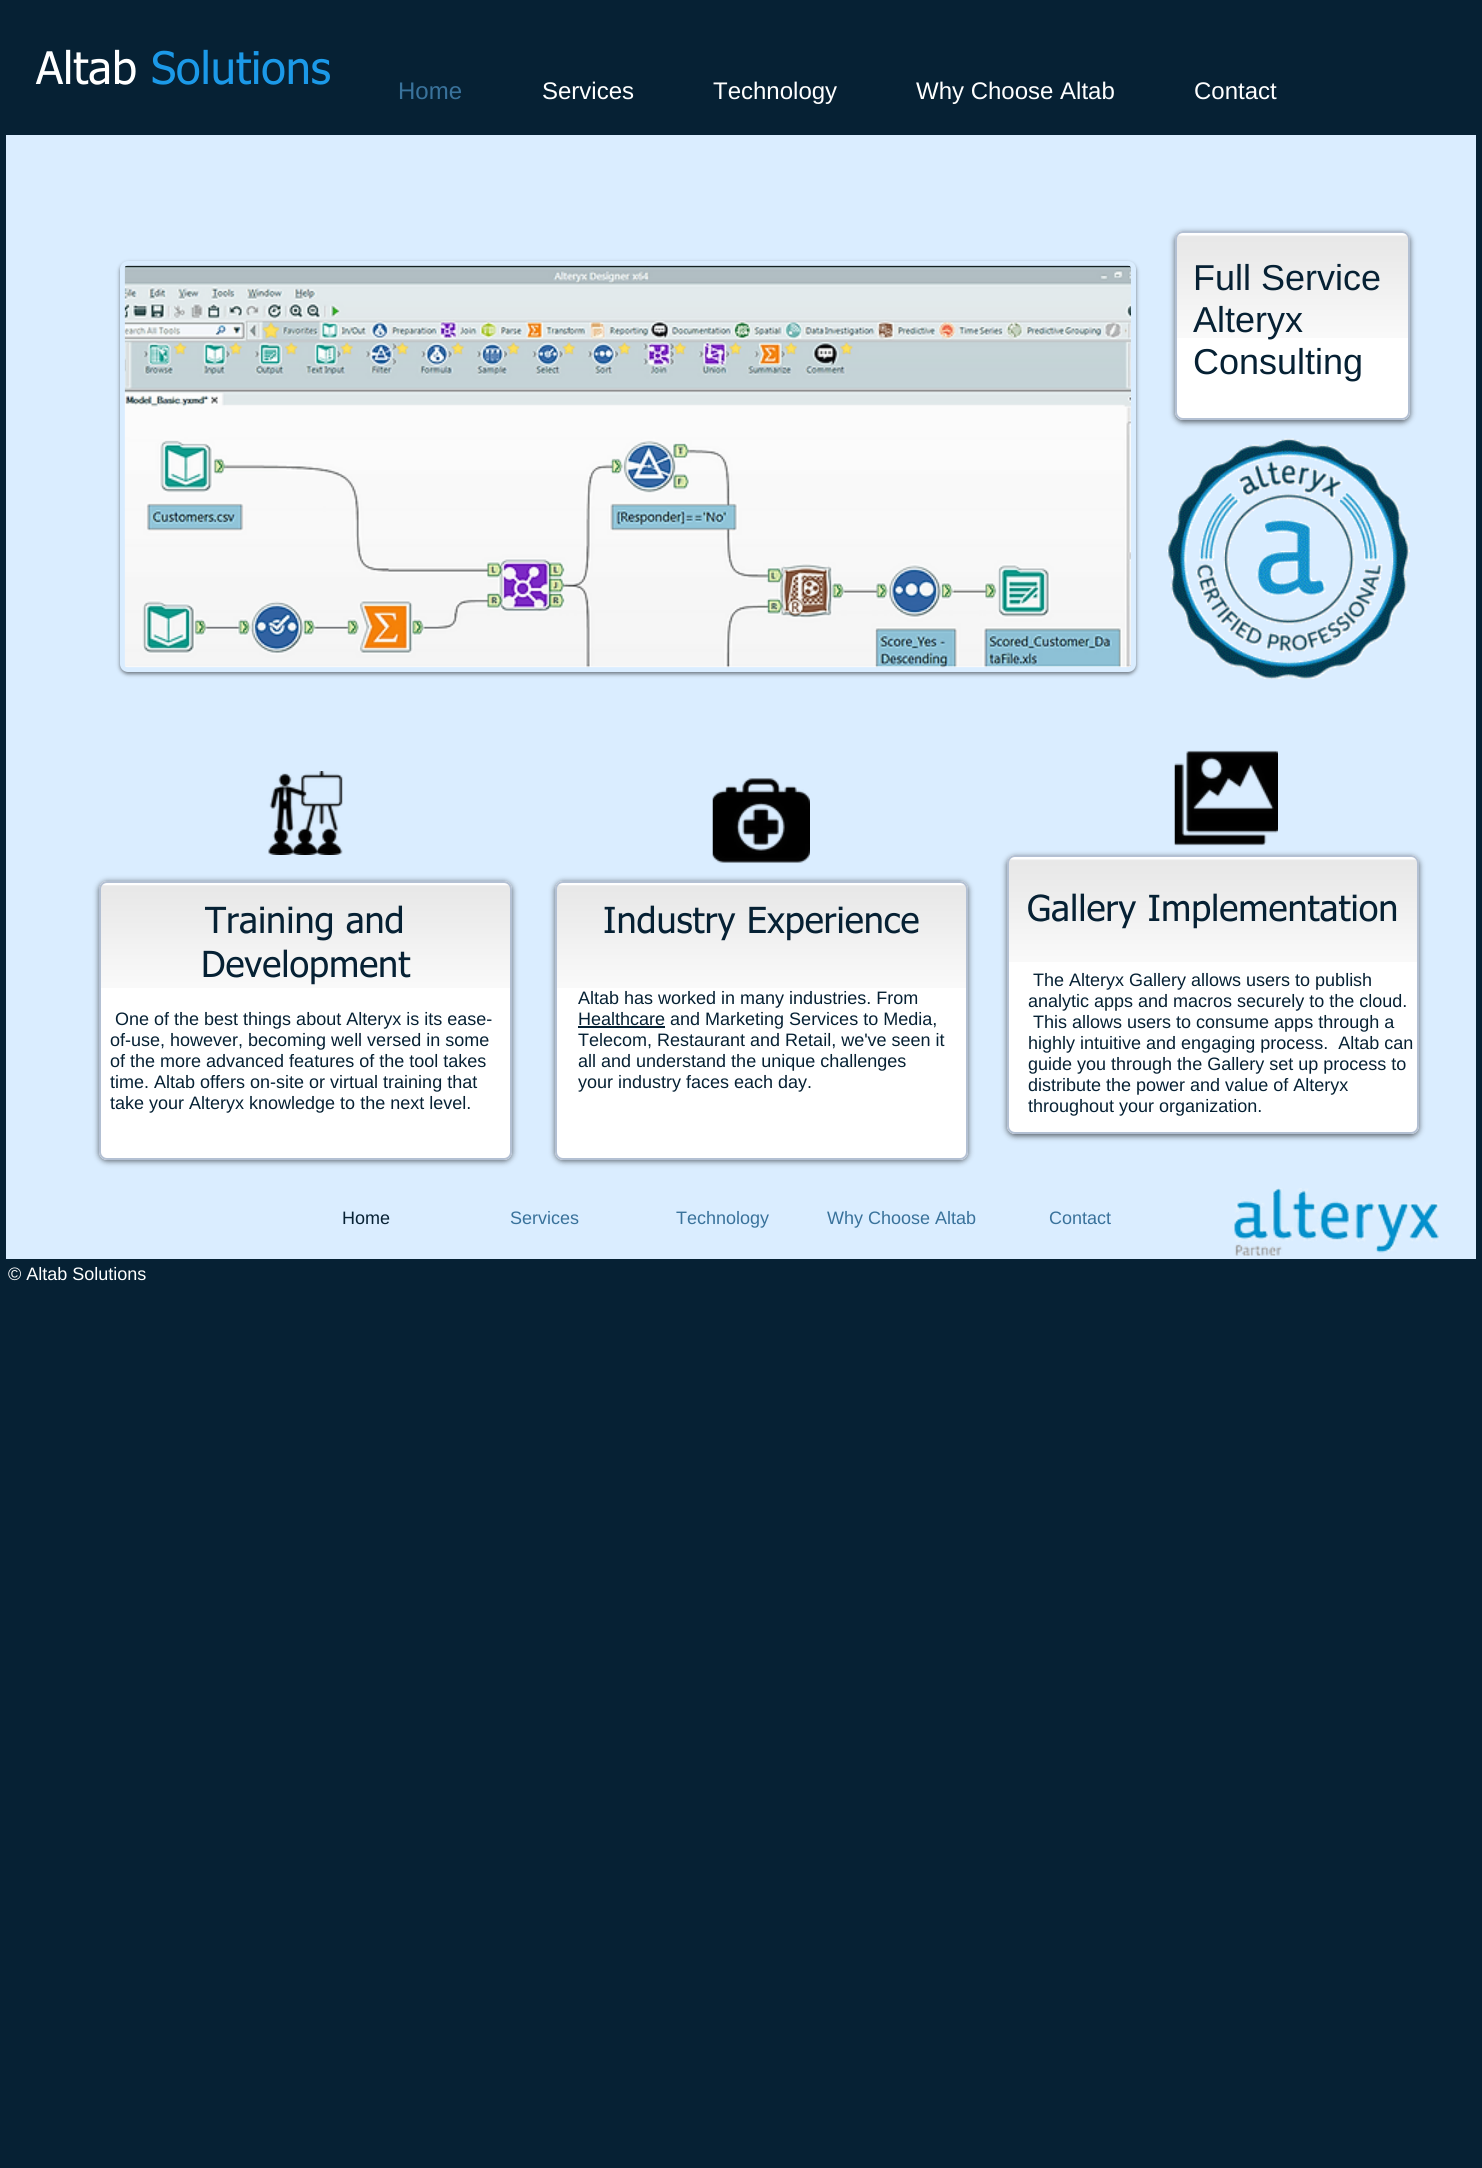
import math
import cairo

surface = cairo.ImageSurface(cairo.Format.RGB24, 1482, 2168)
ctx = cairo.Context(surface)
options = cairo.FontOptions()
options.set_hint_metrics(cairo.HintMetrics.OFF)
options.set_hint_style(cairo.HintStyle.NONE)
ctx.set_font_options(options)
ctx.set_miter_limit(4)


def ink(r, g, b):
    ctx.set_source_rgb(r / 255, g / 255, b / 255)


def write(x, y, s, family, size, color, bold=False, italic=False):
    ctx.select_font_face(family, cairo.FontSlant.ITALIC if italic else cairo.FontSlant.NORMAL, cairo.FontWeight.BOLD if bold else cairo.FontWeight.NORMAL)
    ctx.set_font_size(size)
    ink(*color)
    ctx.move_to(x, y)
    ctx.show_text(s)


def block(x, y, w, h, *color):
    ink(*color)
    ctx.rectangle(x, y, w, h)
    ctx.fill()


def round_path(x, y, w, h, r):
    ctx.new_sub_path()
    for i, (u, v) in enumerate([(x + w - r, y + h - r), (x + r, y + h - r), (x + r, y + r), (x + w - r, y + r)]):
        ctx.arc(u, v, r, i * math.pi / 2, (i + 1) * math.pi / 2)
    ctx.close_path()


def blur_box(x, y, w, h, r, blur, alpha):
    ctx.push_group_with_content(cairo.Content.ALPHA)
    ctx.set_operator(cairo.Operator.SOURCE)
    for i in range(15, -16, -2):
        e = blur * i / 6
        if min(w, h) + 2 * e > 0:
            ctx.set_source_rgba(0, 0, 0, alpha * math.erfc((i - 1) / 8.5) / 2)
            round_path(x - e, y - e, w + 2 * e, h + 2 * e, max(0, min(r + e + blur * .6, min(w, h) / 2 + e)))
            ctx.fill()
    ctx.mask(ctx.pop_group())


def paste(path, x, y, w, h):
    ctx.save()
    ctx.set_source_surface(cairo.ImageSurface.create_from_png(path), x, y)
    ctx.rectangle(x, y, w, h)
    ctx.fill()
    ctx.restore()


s1 = dict(family="tahoma", size=45, color=(255, 255, 255))
s2 = dict(family="tahoma", size=45, color=(27, 153, 232))
s3 = dict(family="Liberation Sans", size=24, color=(57, 114, 155))
s4 = dict(family="Liberation Sans", size=24, color=(255, 255, 255))
s5 = dict(family="Liberation Sans", size=36, color=(6, 33, 52))
s6 = dict(family="tahoma", size=36, color=(6, 33, 52))
s7 = dict(family="Liberation Sans", size=18, color=(6, 33, 52))
s8 = dict(family="Liberation Sans", size=18, color=(57, 114, 155))
s9 = dict(family="Liberation Sans", size=18, color=(255, 255, 255))

ink(6, 33, 52)
ctx.paint()
write(36, 84, "Altab", **s1)
write(151, 84, "Solutions", **s2)
write(398, 99, "Home", **s3)
write(542, 99, "Services", **s4)
write(713, 99, "Technology", **s4)
write(916, 99, "Why Choose Altab", **s4)
write(1194, 99, "Contact", **s4)
block(6, 135, 1470, 1124, 218, 237, 255)
ink(0, 0, 0)
blur_box(120, 263, 1016, 411, 8, 2, 0.5)
round_path(122.5, 263.5, 1011, 406, 5.5)
ink(218, 237, 255)
ctx.set_line_width(5)
ctx.stroke()
paste("pic1.png", 124, 265, 1007, 403)
ink(0, 0, 0)
blur_box(1175, 233, 235, 189, 8, 3, 0.6)
ink(255, 255, 255)
round_path(1175, 231, 235, 189, 8)
ctx.fill()
paste("pic2.png", 1175, 235, 235, 103)
round_path(1176, 232, 233, 187, 7)
ink(179, 192, 211)
ctx.set_line_width(2)
ctx.stroke()
write(1193, 290, "Full Service", **s5)
write(1193, 332, "Alteryx", **s5)
write(1193, 374, "Consulting", **s5)
paste("pic3.png", 1167, 438, 243, 241)
paste("pic4.png", 268, 771, 75, 84)
paste("pic5.png", 712, 778, 98, 85)
paste("pic6.png", 1174, 750, 104, 96)
ink(0, 0, 0)
blur_box(99, 882, 413, 279, 8, 3, 0.6)
ink(255, 255, 255)
round_path(99, 881, 413, 279, 8)
ctx.fill()
paste("pic7.png", 99, 885, 412, 103)
round_path(100, 882, 411, 277, 7)
ink(179, 192, 211)
ctx.stroke()
write(205, 933, "Training and", **s6)
write(201, 977, "Development", **s6)
write(115, 1025, "One of the best things about Alteryx is its ease-", **s7)
write(110, 1046, "of-use, however, becoming well versed in some", **s7)
write(110, 1067, "of the more advanced features of the tool takes", **s7)
write(110, 1088, "time. Altab offers on-site or virtual training that", **s7)
write(110, 1109, "take your Alteryx knowledge to the next level.", **s7)
ink(0, 0, 0)
blur_box(555, 882, 413, 279, 8, 3, 0.6)
ink(255, 255, 255)
round_path(555, 881, 413, 279, 8)
ctx.fill()
paste("pic7.png", 555, 885, 412, 103)
round_path(556, 882, 411, 277, 7)
ink(179, 192, 211)
ctx.stroke()
write(603, 933, "Industry Experience", **s6)
write(578, 1004, "Altab has worked in many industries. From", **s7)
block(578, 1026, 87, 2, 6, 33, 52)
write(578, 1025, "Healthcare and Marketing Services to Media,", **s7)
write(578, 1046, "Telecom, Restaurant and Retail, we've seen it", **s7)
write(578, 1067, "all and understand the unique challenges", **s7)
write(578, 1088, "your industry faces each day.", **s7)
ink(0, 0, 0)
blur_box(1007, 857, 412, 279, 8, 3, 0.6)
ink(255, 255, 255)
round_path(1007, 855, 412, 279, 8)
ctx.fill()
paste("pic8.png", 1007, 859, 412, 103)
round_path(1008, 856, 410, 277, 7)
ink(179, 192, 211)
ctx.stroke()
write(1027, 921, "Gallery Implementation", **s6)
write(1033, 986, "The Alteryx Gallery allows users to publish", **s7)
write(1028, 1007, "analytic apps and macros securely to the cloud.", **s7)
write(1033, 1028, "This allows users to consume apps through a", **s7)
write(1028, 1049, "highly intuitive and engaging process.  Altab can", **s7)
write(1028, 1070, "guide you through the Gallery set up process to", **s7)
write(1028, 1091, "distribute the power and value of Alteryx", **s7)
write(1028, 1112, "throughout your organization.", **s7)
write(342, 1224, "Home", **s7)
write(510, 1224, "Services", **s8)
write(676, 1224, "Technology", **s8)
write(827, 1224, "Why Choose Altab", **s8)
write(1049, 1224, "Contact", **s8)
paste("pic9.png", 1234, 1188, 206, 69)
write(8, 1280, "© Altab Solutions", **s9)
surface.write_to_png("screenshot.png")
